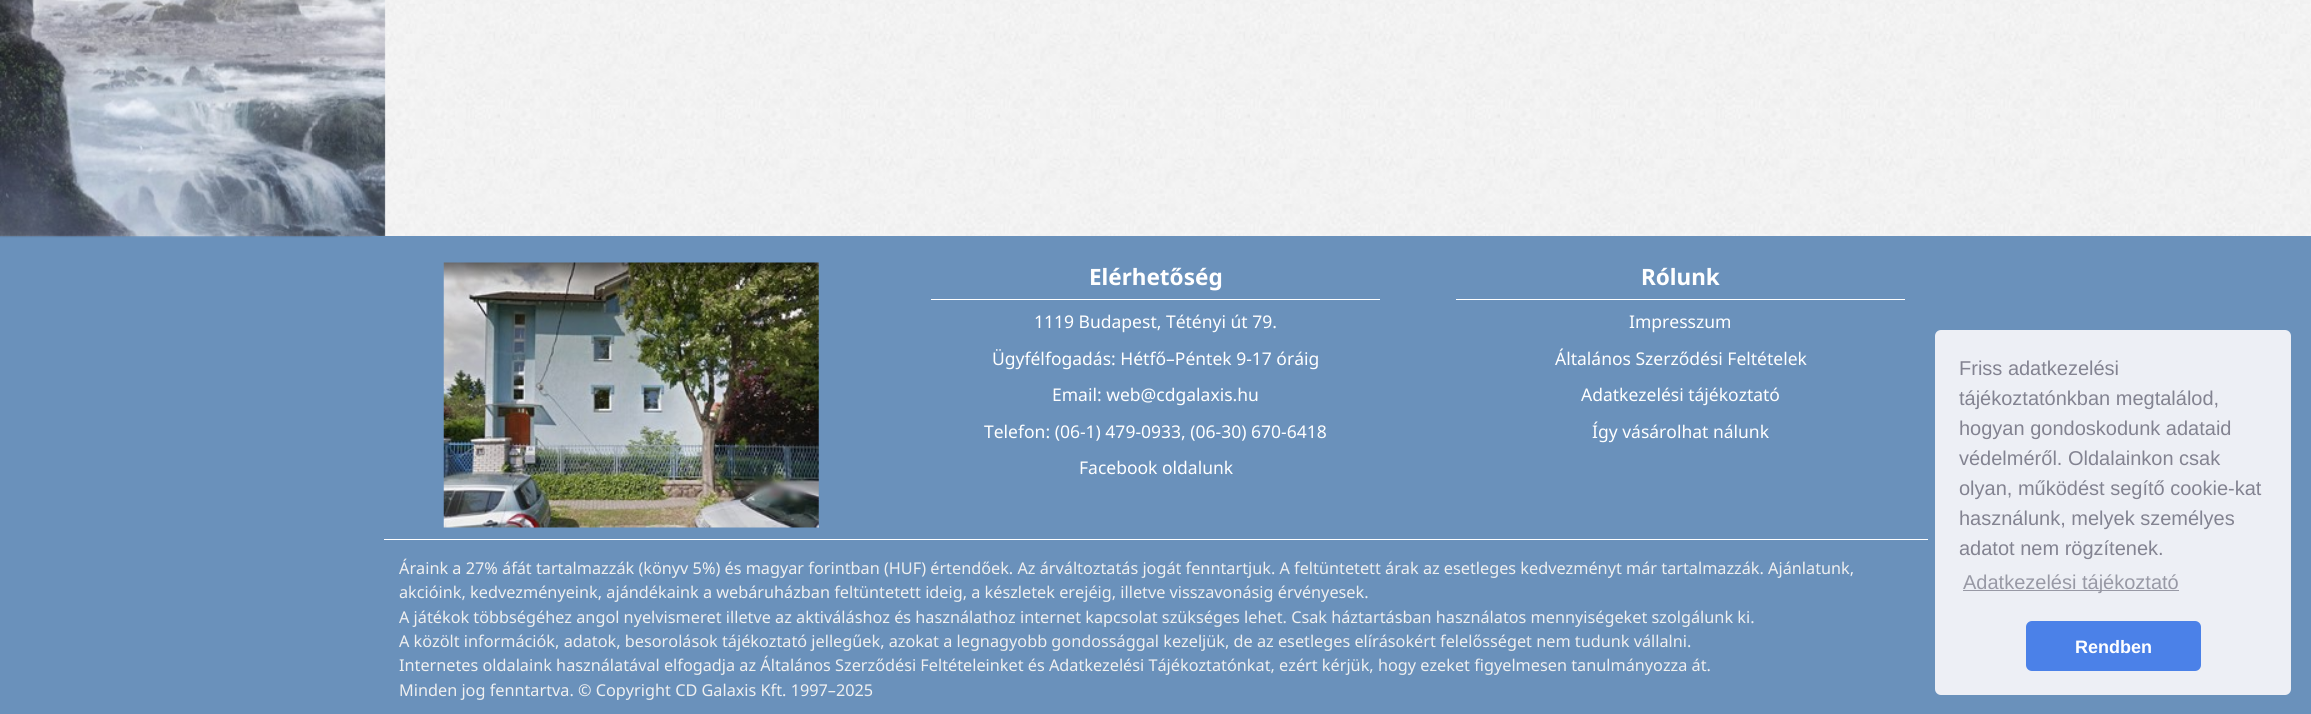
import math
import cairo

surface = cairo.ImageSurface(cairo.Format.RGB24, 2311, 714)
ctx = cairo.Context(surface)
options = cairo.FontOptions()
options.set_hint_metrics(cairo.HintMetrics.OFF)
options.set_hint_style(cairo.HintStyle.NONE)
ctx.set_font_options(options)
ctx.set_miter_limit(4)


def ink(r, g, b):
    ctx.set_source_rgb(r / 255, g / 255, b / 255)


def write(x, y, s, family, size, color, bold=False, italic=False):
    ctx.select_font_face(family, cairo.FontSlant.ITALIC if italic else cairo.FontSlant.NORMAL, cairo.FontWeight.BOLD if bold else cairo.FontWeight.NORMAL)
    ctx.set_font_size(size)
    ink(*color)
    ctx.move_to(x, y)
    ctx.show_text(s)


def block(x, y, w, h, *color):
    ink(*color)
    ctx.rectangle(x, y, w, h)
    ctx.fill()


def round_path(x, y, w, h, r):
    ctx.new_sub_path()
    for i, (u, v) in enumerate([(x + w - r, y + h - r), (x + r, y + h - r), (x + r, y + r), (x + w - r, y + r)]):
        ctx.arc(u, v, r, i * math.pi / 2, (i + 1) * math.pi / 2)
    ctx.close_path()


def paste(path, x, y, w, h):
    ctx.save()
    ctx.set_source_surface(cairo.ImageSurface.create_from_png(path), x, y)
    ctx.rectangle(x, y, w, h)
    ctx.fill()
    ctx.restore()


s1 = dict(family="Noto Sans", size=22.5, color=(255, 255, 255), bold=True)
s2 = dict(family="Noto Sans", size=17.5, color=(255, 255, 255))
s3 = dict(family="Noto Sans", size=16.25, color=(240, 240, 240))
s4 = dict(family="Liberation Sans", size=20, color=(131, 131, 145))
s5 = dict(family="Liberation Sans", size=20, color=(152, 153, 165))
s6 = dict(family="Liberation Sans", size=18, color=(255, 255, 255), bold=True)

ink(255, 255, 255)
ctx.paint()
paste("pic1.png", 0, 0, 2311, 236)
block(0, 236, 2311, 478, 106, 145, 187)
paste("pic2.png", 0, 0, 386, 238)
round_path(369.5, 236.5, 524, 298, 4.5)
ctx.fill_preserve()
ctx.set_line_width(1)
ctx.stroke()
paste("pic3.png", 443, 262, 376, 266)
write(1089, 285, "Elérhetőség", **s1)
block(931, 299, 449, 1, 255, 255, 255)
write(1034, 328, "1119 Budapest, Tétényi út 79.", **s2)
write(992, 365, "Ügyfélfogadás: Hétfő–Péntek 9-17 óráig", **s2)
write(1052, 401, "Email: web@cdgalaxis.hu", **s2)
write(984, 438, "Telefon: (06-1) 479-0933, (06-30) 670-6418", **s2)
write(1079, 474, "Facebook oldalunk", **s2)
write(1641, 285, "Rólunk", **s1)
block(1456, 299, 449, 1, 255, 255, 255)
write(1629, 328, "Impresszum", **s2)
write(1555, 365, "Általános Szerződési Feltételek", **s2)
write(1581, 401, "Adatkezelési tájékoztató", **s2)
write(1592, 438, "Így vásárolhat nálunk", **s2)
block(384, 539, 1544, 1, 255, 255, 255)
write(399, 574, "Áraink a 27% áfát tartalmazzák (könyv 5%) és magyar forintban (HUF) értendőek. Az árváltoztatás jogát fenntartjuk. A feltüntetett árak az esetleges kedvezményt már tartalmazzák. Ajánlatunk,", **s3)
write(399, 598, "akcióink, kedvezményeink, ajándékaink a webáruházban feltüntetett ideig, a készletek erejéig, illetve visszavonásig érvényesek.", **s3)
write(399, 623, "A játékok többségéhez angol nyelvismeret illetve az aktiváláshoz és használathoz internet kapcsolat szükséges lehet. Csak háztartásban használatos mennyiségeket szolgálunk ki.", **s3)
write(399, 647, "A közölt információk, adatok, besorolások tájékoztató jellegűek, azokat a legnagyobb gondossággal kezeljük, de az esetleges elírásokért felelősséget nem tudunk vállalni.", **s3)
write(399, 671, "Internetes oldalaink használatával elfogadja az Általános Szerződési Feltételeinket és Adatkezelési Tájékoztatónkat, ezért kérjük, hogy ezeket figyelmesen tanulmányozza át.", **s3)
write(399, 696, "Minden jog fenntartva. © Copyright CD Galaxis Kft. 1997–2025", **s3)
ink(237, 239, 245)
round_path(1935, 330, 356, 365, 6)
ctx.fill()
write(1959, 375, "Friss adatkezelési", **s4)
write(1959, 405, "tájékoztatónkban megtalálod,", **s4)
write(1959, 435, "hogyan gondoskodunk adataid", **s4)
write(1959, 465, "védelméről. Oldalainkon csak", **s4)
write(1959, 495, "olyan, működést segítő cookie-kat", **s4)
write(1959, 525, "használunk, melyek személyes", **s4)
write(1959, 555, "adatot nem rögzítenek.", **s4)
block(1963, 590, 216, 1, 152, 153, 165)
write(1963, 589, "Adatkezelési tájékoztató", **s5)
ink(75, 129, 232)
round_path(2026, 621, 175, 50, 6)
ctx.fill()
write(2075, 653, "Rendben", **s6)
surface.write_to_png("screenshot.png")
